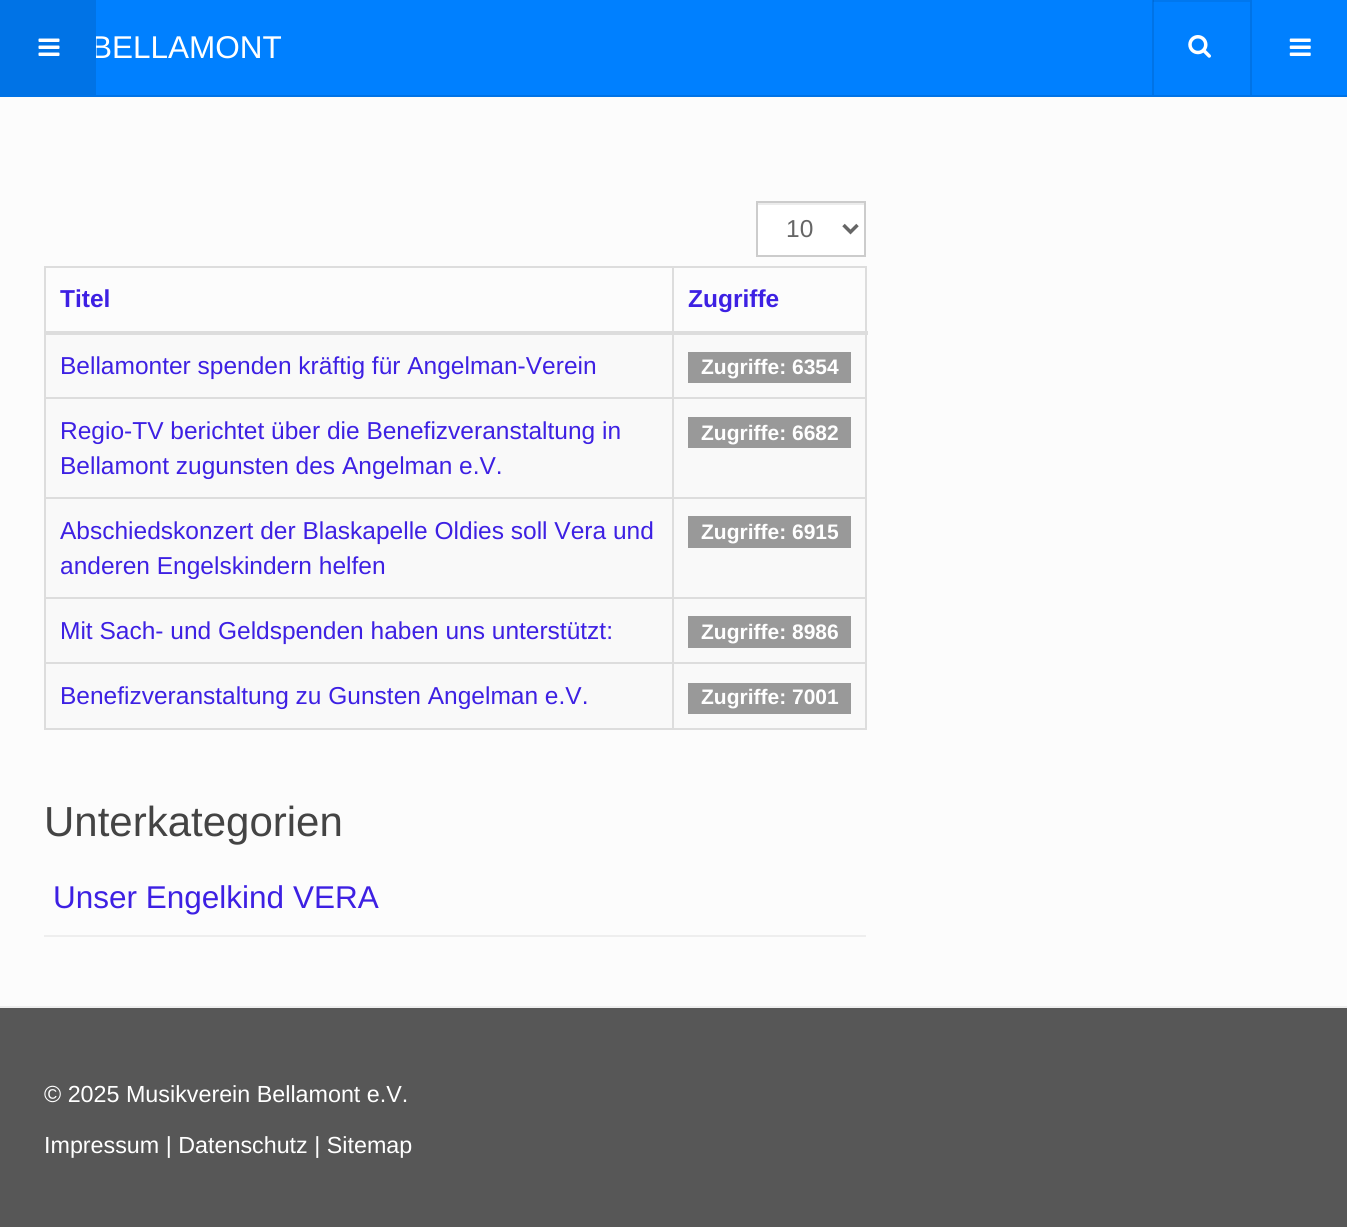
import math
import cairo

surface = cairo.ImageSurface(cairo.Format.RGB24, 1347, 1227)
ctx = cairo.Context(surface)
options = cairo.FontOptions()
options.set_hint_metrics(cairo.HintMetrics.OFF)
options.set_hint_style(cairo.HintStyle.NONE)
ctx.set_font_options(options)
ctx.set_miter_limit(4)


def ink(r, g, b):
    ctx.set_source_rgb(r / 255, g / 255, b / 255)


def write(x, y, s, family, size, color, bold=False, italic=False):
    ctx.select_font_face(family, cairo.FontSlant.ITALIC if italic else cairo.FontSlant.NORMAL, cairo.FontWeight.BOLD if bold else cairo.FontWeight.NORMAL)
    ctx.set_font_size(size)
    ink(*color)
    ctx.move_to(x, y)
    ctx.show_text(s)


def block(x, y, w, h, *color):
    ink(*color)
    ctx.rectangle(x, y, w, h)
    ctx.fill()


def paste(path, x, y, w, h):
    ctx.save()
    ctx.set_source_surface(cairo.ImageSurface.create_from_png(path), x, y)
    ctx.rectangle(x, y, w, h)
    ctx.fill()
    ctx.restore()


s1 = dict(family="Liberation Sans", size=31.5, color=(255, 255, 255))
s2 = dict(family="Liberation Sans", size=24.5, color=(102, 102, 102))
s3 = dict(family="Liberation Sans", size=24.5, color=(61, 32, 227), bold=True)
s4 = dict(family="Liberation Sans", size=24.5, color=(61, 32, 227))
s5 = dict(family="Liberation Sans", size=21, color=(255, 255, 255), bold=True)
s6 = dict(family="Liberation Sans", size=42, color=(68, 68, 68))
s7 = dict(family="Liberation Sans", size=31.5, color=(61, 32, 227))
s8 = dict(family="Liberation Sans", size=23.3, color=(255, 255, 255))

ink(252, 252, 252)
ctx.paint()
block(96, 0, 1251, 95, 0, 128, 255)
block(0, 95, 1347, 2, 0, 115, 230)
write(91, 58, "BELLAMONT", **s1)
block(0, 0, 96, 95, 0, 115, 230)
paste("pic1.png", 38, 38, 22, 18)
block(1250, 0, 2, 95, 0, 115, 230)
block(1152, 0, 2, 95, 0, 115, 230)
ctx.set_source_rgba(0, 0, 0, 0.07)
ctx.rectangle(1153, 0, 97, 2)
ctx.fill()
paste("pic2.png", 1188, 35, 23, 23)
paste("pic3.png", 1289, 38, 22, 18)
block(758, 205, 106, 50, 255, 255, 255)
block(758, 203, 107, 2, 236, 236, 236)
ctx.rectangle(757, 202, 108, 54)
ink(204, 204, 204)
ctx.stroke()
ctx.new_path()
ctx.move_to(843.5, 225)
ctx.line_to(850.5, 232)
ctx.line_to(857.5, 225)
ink(102, 102, 102)
ctx.set_line_width(3.5)
ctx.stroke()
write(786, 237, "10", **s2)
block(44, 266, 822, 2, 221, 221, 221)
block(865, 266, 2, 464, 221, 221, 221)
block(44, 728, 822, 2, 221, 221, 221)
block(44, 266, 2, 464, 221, 221, 221)
write(60, 307, "Titel", **s3)
block(46, 335, 819, 62, 249, 249, 249)
block(672, 397, 194, 2, 221, 221, 221)
block(46, 399, 819, 98, 249, 249, 249)
block(672, 497, 194, 2, 221, 221, 221)
block(46, 499, 819, 98, 249, 249, 249)
block(672, 597, 194, 2, 221, 221, 221)
block(46, 599, 819, 63, 249, 249, 249)
block(672, 662, 194, 2, 221, 221, 221)
block(46, 664, 819, 64, 249, 249, 249)
block(672, 662, 2, 68, 221, 221, 221)
block(44, 662, 630, 2, 221, 221, 221)
block(672, 597, 2, 66, 221, 221, 221)
block(44, 597, 630, 2, 221, 221, 221)
block(672, 497, 2, 102, 221, 221, 221)
block(44, 497, 630, 2, 221, 221, 221)
block(672, 397, 2, 102, 221, 221, 221)
block(44, 397, 630, 2, 221, 221, 221)
block(672, 266, 2, 133, 221, 221, 221)
block(44, 331, 824, 4, 221, 221, 221)
write(688, 307, "Zugriffe", **s3)
write(60, 374, "Bellamonter spenden kräftig für Angelman-Verein", **s4)
block(688, 352, 163, 31, 153, 153, 153)
write(701, 374, "Zugriffe: 6354", **s5)
write(60, 439, "Regio-TV berichtet über die Benefizveranstaltung in", **s4)
write(60, 474, "Bellamont zugunsten des Angelman e.V.", **s4)
block(688, 417, 163, 31, 153, 153, 153)
write(701, 440, "Zugriffe: 6682", **s5)
write(60, 539, "Abschiedskonzert der Blaskapelle Oldies soll Vera und", **s4)
write(60, 574, "anderen Engelskindern helfen", **s4)
block(688, 516, 163, 32, 153, 153, 153)
write(701, 539, "Zugriffe: 6915", **s5)
write(60, 639, "Mit Sach- und Geldspenden haben uns unterstützt:", **s4)
block(688, 616, 163, 32, 153, 153, 153)
write(701, 639, "Zugriffe: 8986", **s5)
write(60, 704, "Benefizveranstaltung zu Gunsten Angelman e.V.", **s4)
block(688, 683, 163, 31, 153, 153, 153)
write(701, 704, "Zugriffe: 7001", **s5)
write(44, 836, "Unterkategorien", **s6)
block(44, 935, 822, 2, 238, 238, 238)
write(53, 908, "Unser Engelkind VERA", **s7)
block(0, 1008, 1347, 219, 87, 87, 87)
block(0, 1006, 1347, 2, 238, 238, 238)
write(44, 1102, "© 2025 Musikverein Bellamont e.V.", **s8)
write(44, 1153, "Impressum | Datenschutz | Sitemap", **s8)
surface.write_to_png("screenshot.png")
